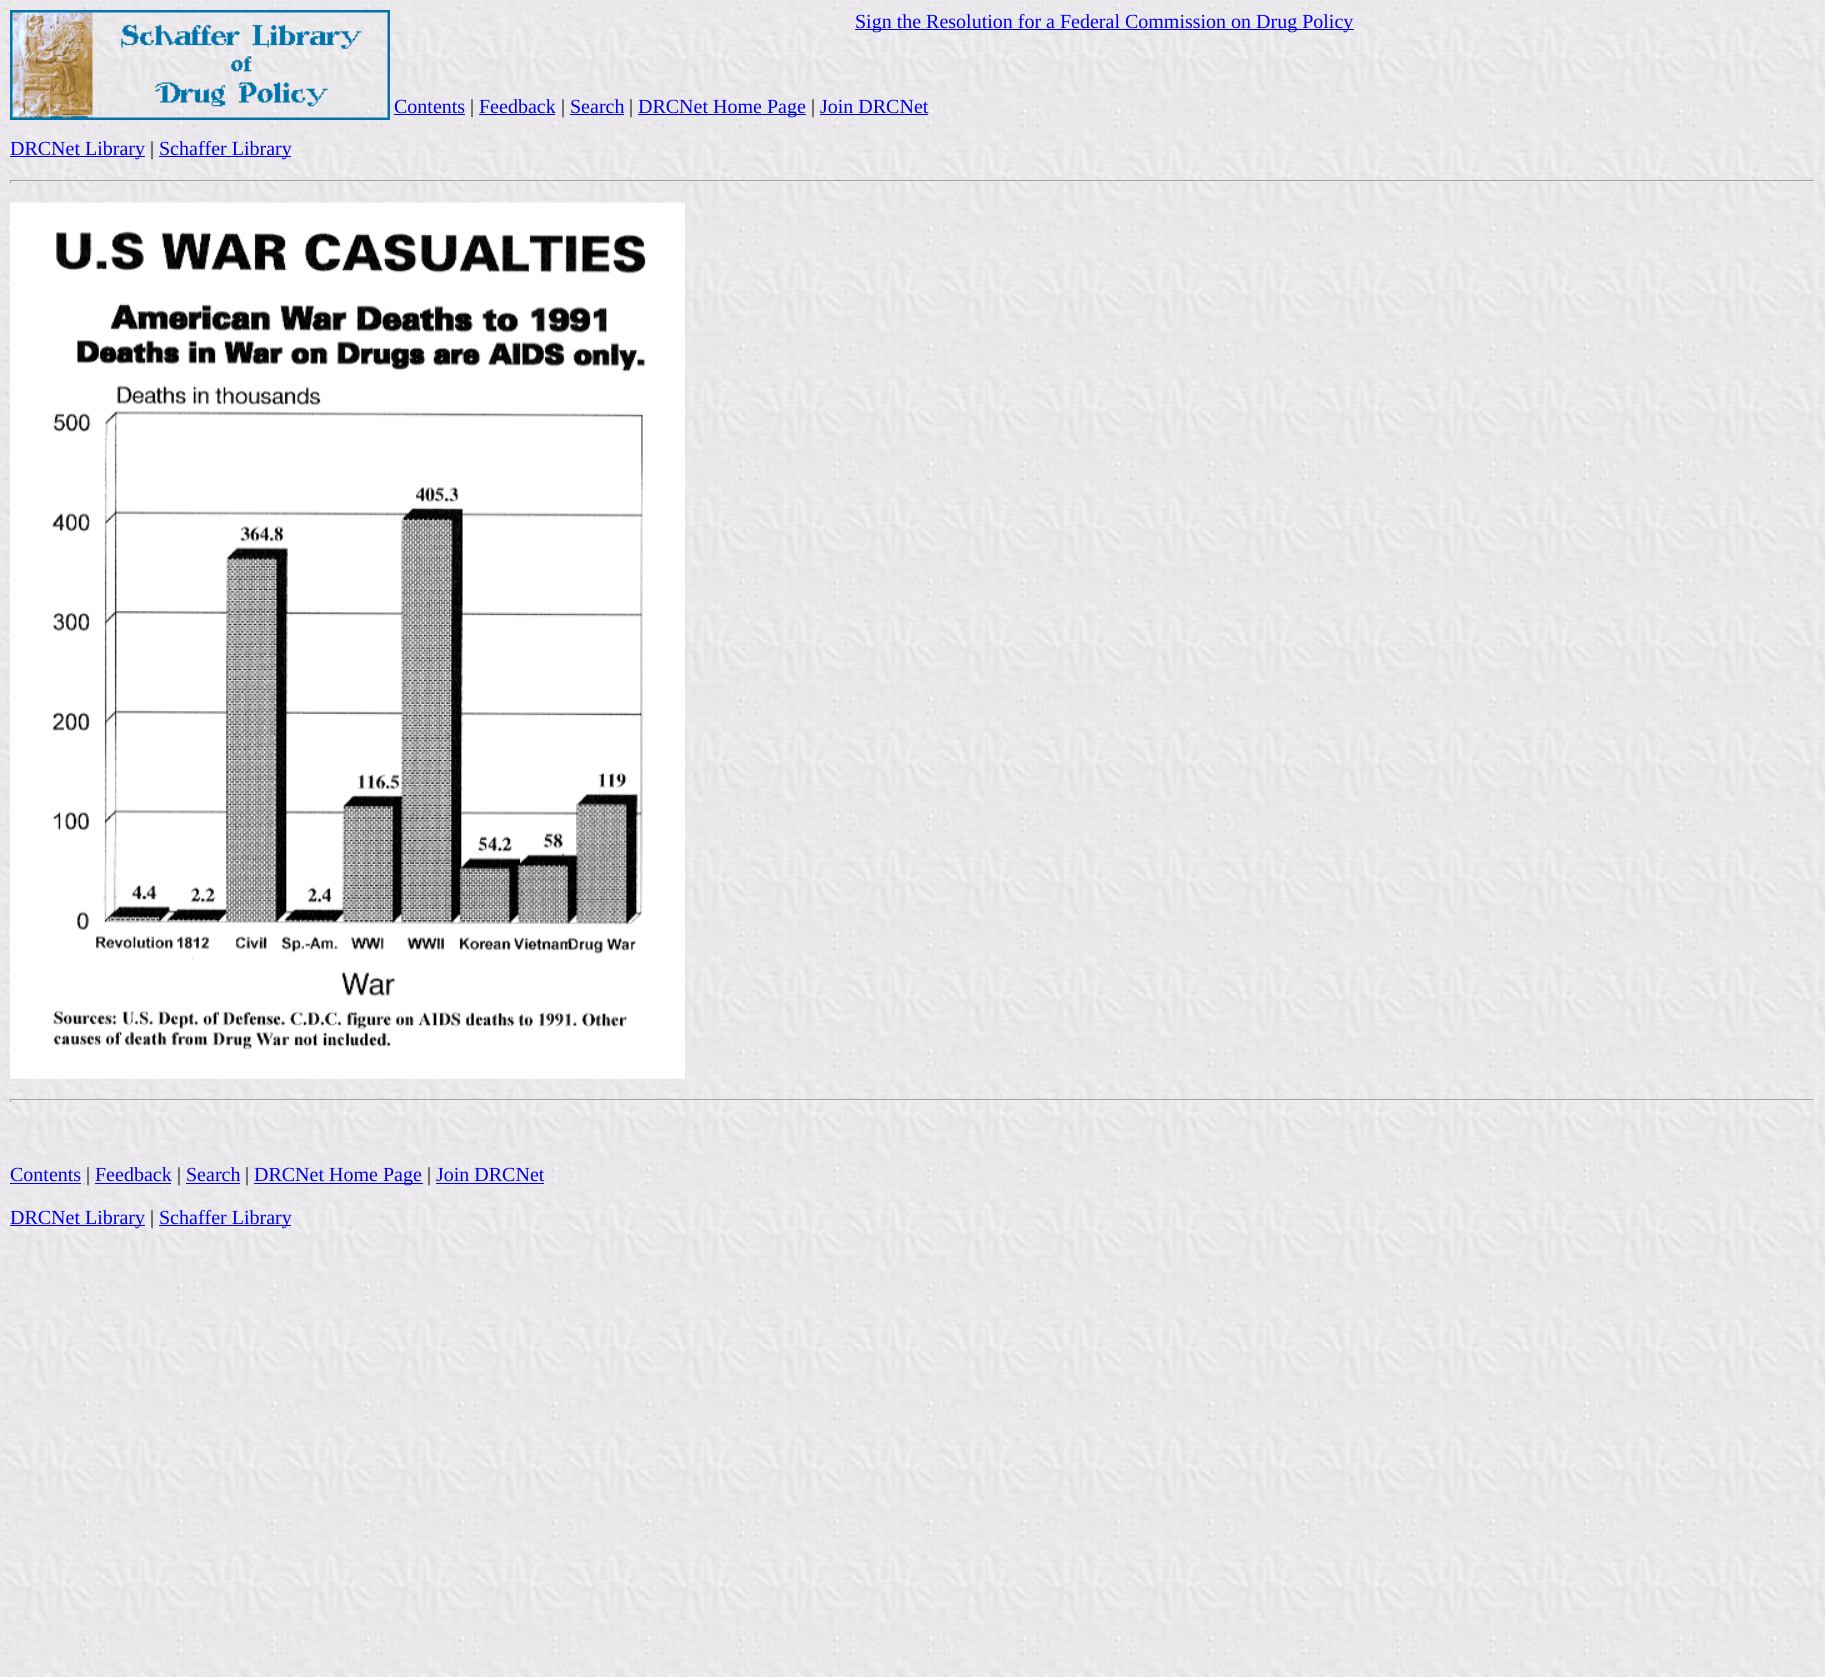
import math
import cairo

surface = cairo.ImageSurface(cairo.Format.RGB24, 1825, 1677)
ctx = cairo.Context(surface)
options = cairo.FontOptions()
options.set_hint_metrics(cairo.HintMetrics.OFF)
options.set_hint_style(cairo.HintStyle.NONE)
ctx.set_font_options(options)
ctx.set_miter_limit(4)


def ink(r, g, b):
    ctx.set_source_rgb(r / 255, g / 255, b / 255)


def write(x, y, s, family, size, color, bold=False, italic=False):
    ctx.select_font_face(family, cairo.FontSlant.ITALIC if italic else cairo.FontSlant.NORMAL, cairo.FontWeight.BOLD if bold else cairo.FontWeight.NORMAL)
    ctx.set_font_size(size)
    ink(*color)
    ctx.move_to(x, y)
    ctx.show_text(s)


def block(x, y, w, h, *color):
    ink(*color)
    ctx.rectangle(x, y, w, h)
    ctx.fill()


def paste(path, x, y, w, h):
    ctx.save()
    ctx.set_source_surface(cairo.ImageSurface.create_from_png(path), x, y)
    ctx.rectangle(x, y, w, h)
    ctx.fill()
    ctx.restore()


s1 = dict(family="Liberation Serif", size=20, color=(0, 0, 238))
s2 = dict(family="Liberation Serif", size=20, color=(0, 0, 0))

ink(255, 255, 255)
ctx.paint()
paste("pic1.png", 0, 0, 1825, 1677)
paste("pic2.png", 10, 10, 380, 110)
block(855, 29, 499, 1, 0, 0, 238)
write(855, 28, "Sign the Resolution for a Federal Commission on Drug Policy", **s1)
write(394, 113, "Contents", **s1)
block(394, 114, 71, 1, 0, 0, 238)
write(470, 113, "|", **s2)
write(479, 113, "Feedback", **s1)
block(479, 114, 76, 1, 0, 0, 238)
write(561, 113, "|", **s2)
write(570, 113, "Search", **s1)
block(570, 114, 54, 1, 0, 0, 238)
write(629, 113, "|", **s2)
block(638, 114, 168, 1, 0, 0, 238)
write(638, 113, "DRCNet Home Page", **s1)
write(811, 113, "|", **s2)
write(820, 113, "Join DRCNet", **s1)
block(820, 114, 108, 1, 0, 0, 238)
block(10, 156, 135, 1, 0, 0, 238)
write(10, 155, "DRCNet Library", **s1)
write(150, 155, "|", **s2)
block(159, 156, 132, 1, 0, 0, 238)
write(159, 155, "Schaffer Library", **s1)
block(10, 180, 1805, 1, 159, 159, 159)
block(1814, 180, 1, 3, 238, 238, 238)
block(10, 181, 1805, 1, 238, 238, 238)
block(10, 180, 1, 3, 159, 159, 159)
paste("pic3.png", 10, 202, 675, 877)
block(10, 1099, 1805, 1, 159, 159, 159)
block(1814, 1099, 1, 3, 238, 238, 238)
block(10, 1100, 1805, 1, 238, 238, 238)
block(10, 1099, 1, 3, 159, 159, 159)
write(10, 1181, "Contents", **s1)
block(10, 1183, 71, 1, 0, 0, 238)
write(86, 1181, "|", **s2)
write(95, 1181, "Feedback", **s1)
block(95, 1183, 76, 1, 0, 0, 238)
write(177, 1181, "|", **s2)
write(186, 1181, "Search", **s1)
block(186, 1183, 54, 1, 0, 0, 238)
write(245, 1181, "|", **s2)
block(254, 1183, 169, 1, 0, 0, 238)
write(254, 1181, "DRCNet Home Page", **s1)
write(427, 1181, "|", **s2)
write(436, 1181, "Join DRCNet", **s1)
block(436, 1183, 108, 1, 0, 0, 238)
block(10, 1225, 135, 1, 0, 0, 238)
write(10, 1224, "DRCNet Library", **s1)
write(150, 1224, "|", **s2)
block(159, 1225, 132, 1, 0, 0, 238)
write(159, 1224, "Schaffer Library", **s1)
surface.write_to_png("screenshot.png")
